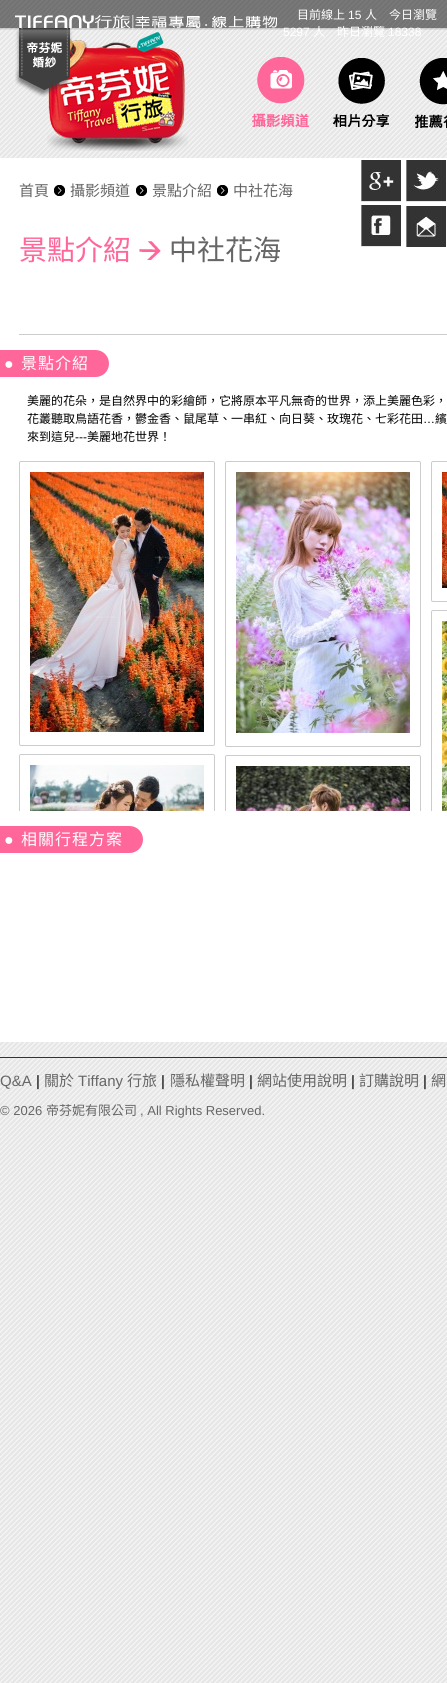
import math
import cairo

surface = cairo.ImageSurface(cairo.Format.RGB24, 447, 1683)
ctx = cairo.Context(surface)
options = cairo.FontOptions()
options.set_hint_metrics(cairo.HintMetrics.OFF)
options.set_hint_style(cairo.HintStyle.NONE)
ctx.set_font_options(options)
ctx.set_miter_limit(4)


def ink(r, g, b):
    ctx.set_source_rgb(r / 255, g / 255, b / 255)


def write(x, y, s, family, size, color, bold=False, italic=False):
    ctx.select_font_face(family, cairo.FontSlant.ITALIC if italic else cairo.FontSlant.NORMAL, cairo.FontWeight.BOLD if bold else cairo.FontWeight.NORMAL)
    ctx.set_font_size(size)
    ink(*color)
    ctx.move_to(x, y)
    ctx.show_text(s)


def write_spaced(x, y, s, letter, word):
    ctx.move_to(x, y)
    for ch in s:
        ctx.show_text(ch)
        ctx.rel_move_to(letter + word * (ch == ' '), 0)


def block(x, y, w, h, *color):
    ink(*color)
    ctx.rectangle(x, y, w, h)
    ctx.fill()


def round_path(x, y, w, h, r):
    ctx.new_sub_path()
    for i, (u, v) in enumerate([(x + w - r, y + h - r), (x + r, y + h - r), (x + r, y + r), (x + w - r, y + r)]):
        ctx.arc(u, v, r, i * math.pi / 2, (i + 1) * math.pi / 2)
    ctx.close_path()


def paste(path, x, y, w, h):
    ctx.save()
    ctx.set_source_surface(cairo.ImageSurface.create_from_png(path), x, y)
    ctx.rectangle(x, y, w, h)
    ctx.fill()
    ctx.restore()


s1 = dict(family="Noto Sans CJK TC", size=12, color=(255, 255, 255))
s2 = dict(family="Liberation Sans", size=12, color=(255, 255, 255))
s3 = dict(family="Noto Sans CJK TC", size=15, color=(102, 102, 102))
s4 = dict(family="Noto Sans CJK TC", size=28, color=(255, 103, 154))
s5 = dict(family="Noto Sans CJK TC", size=28, color=(102, 102, 102))
s6 = dict(family="Noto Sans CJK TC", size=12, color=(0, 0, 0))
s7 = dict(family="Liberation Sans", size=12, color=(0, 0, 0))
s8 = dict(family="Liberation Sans", size=15, color=(102, 102, 102))
s9 = dict(family="Liberation Sans", size=15, color=(0, 0, 0))
s10 = dict(family="Liberation Sans", size=13, color=(102, 102, 102))
s11 = dict(family="Noto Sans CJK TC", size=13, color=(102, 102, 102))

ink(255, 255, 255)
ctx.paint()
paste("pic1.png", 0, 0, 447, 1683)
paste("pic2.png", 0, 0, 447, 30)
paste("pic3.png", 15, 15, 262, 14)
write(297, 19, "目前線上", **s1)
write(348, 19, "15", **s2)
write(365, 19, "人　今日瀏覽", **s1)
write(283, 36, "5297", **s2)
write(313, 36, "人　昨日瀏覽", **s1)
write(388, 36, "18338", **s2)
paste("pic9.png", 47, 32, 141, 119)
paste("pic4.png", 15, 28, 58, 69)
block(0, 158, 447, 884, 255, 255, 255)
paste("pic5.png", 361, 160, 40, 42)
paste("pic6.png", 406, 160, 40, 42)
paste("pic7.png", 361, 205, 40, 42)
paste("pic8.png", 406, 206, 40, 41)
paste("pic10.png", 252, 57, 57, 70)
paste("pic11.png", 333, 58, 56, 69)
paste("pic12.png", 415, 58, 32, 70)
write(19, 196, "首頁", **s3)
paste("pic13.png", 54, 185, 11, 11)
write(70, 196, "攝影頻道", **s3)
paste("pic13.png", 136, 185, 11, 11)
write(152, 196, "景點介紹", **s3)
paste("pic13.png", 217, 185, 11, 11)
write(233, 196, "中社花海", **s3)
write(19, 260, "景點介紹", **s4)
paste("pic14.png", 139, 241, 22, 19)
write(169, 260, "中社花海", **s5)
block(19, 334, 428, 1, 204, 204, 204)
ink(255, 103, 154)
ctx.new_path()
ctx.move_to(-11, 350)
ctx.line_to(95.5, 350)
ctx.curve_to(103, 350, 109, 356, 109, 363.5)
ctx.curve_to(109, 371, 103, 377, 95.5, 377)
ctx.line_to(-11, 377)
ctx.close_path()
ctx.fill()
ctx.select_font_face("Liberation Sans")
ctx.set_font_size(16)
ink(255, 255, 255)
write_spaced(4, 369, "●", 1, 0)
ctx.select_font_face("Noto Sans CJK TC")
write_spaced(21, 369, "景點介紹", 1, 0)
write(27, 405, "美麗的花朵，是自然界中的彩繪師，它將原本平凡無奇的世界，添上美麗色彩，", **s6)
write(27, 423, "花叢聽取鳥語花香，鬱金香、鼠尾草、一串紅、向日葵、玫瑰花、七彩花田", **s6)
write(423, 423, "…", **s7)
write(435, 423, "繽", **s6)
write(27, 441, "來到這兒", **s6)
write(75, 441, "---", **s7)
write(87, 441, "美麗地花世界！", **s6)
round_path(19.5, 461.5, 195, 284, 1.5)
ink(204, 204, 204)
ctx.set_line_width(1)
ctx.stroke()
paste("pic15.png", 30, 472, 174, 260)
round_path(225.5, 461.5, 195, 285, 1.5)
ctx.stroke()
paste("pic16.png", 236, 472, 174, 261)
round_path(431.5, 461.5, 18, 140, 1.5)
ctx.stroke()
paste("pic17.png", 442, 472, 5, 116)
ink(255, 103, 154)
ctx.new_path()
ctx.move_to(-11, 826)
ctx.line_to(129.5, 826)
ctx.curve_to(137, 826, 143, 832, 143, 839.5)
ctx.curve_to(143, 847, 137, 853, 129.5, 853)
ctx.line_to(-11, 853)
ctx.close_path()
ctx.fill()
ctx.save()
ctx.rectangle(19, 461, 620, 350)
ctx.clip()
round_path(19.5, 754.5, 195, 140, 1.5)
ink(204, 204, 204)
ctx.stroke()
ctx.restore()
paste("pic18.png", 30, 765, 174, 46)
ctx.save()
ctx.rectangle(19, 461, 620, 350)
ctx.clip()
round_path(225.5, 755.5, 195, 285, 1.5)
ink(204, 204, 204)
ctx.stroke()
ctx.restore()
paste("pic19.png", 236, 766, 174, 45)
ctx.save()
ctx.rectangle(19, 461, 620, 350)
ctx.clip()
round_path(431.5, 610.5, 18, 285, 1.5)
ink(204, 204, 204)
ctx.stroke()
ctx.restore()
paste("pic20.png", 442, 621, 5, 190)
ctx.select_font_face("Liberation Sans")
ctx.set_font_size(16)
ink(255, 255, 255)
write_spaced(4, 845, "●", 1, 0)
ctx.select_font_face("Noto Sans CJK TC")
write_spaced(21, 845, "相關行程方案", 1, 0)
block(0, 1057, 447, 1, 51, 51, 51)
write(0, 1086, "Q&A", **s8)
write(36, 1086, "|", **s9)
write(44, 1086, "關於", **s3)
write(78, 1086, "Tiffany", **s8)
write(127, 1086, "行旅", **s3)
write(161, 1086, "|", **s9)
write(170, 1086, "隱私權聲明", **s3)
write(249, 1086, "|", **s9)
write(257, 1086, "網站使用說明", **s3)
write(351, 1086, "|", **s9)
write(359, 1086, "訂購說明", **s3)
write(423, 1086, "|", **s9)
write(431, 1086, "網", **s3)
write(0, 1115, "© 2026", **s10)
write(46, 1115, "帝芬妮有限公司", **s11)
write(140, 1115, ", All Rights Reserved.", **s10)
surface.write_to_png("screenshot.png")
